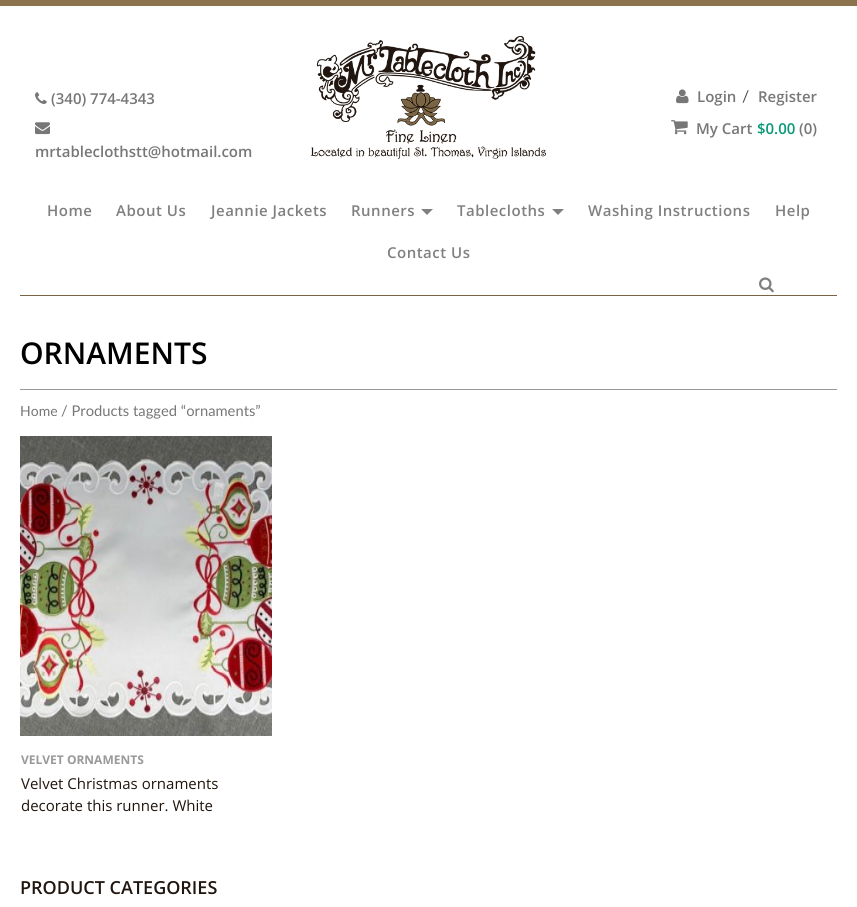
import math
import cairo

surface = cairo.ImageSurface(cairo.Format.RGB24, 857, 907)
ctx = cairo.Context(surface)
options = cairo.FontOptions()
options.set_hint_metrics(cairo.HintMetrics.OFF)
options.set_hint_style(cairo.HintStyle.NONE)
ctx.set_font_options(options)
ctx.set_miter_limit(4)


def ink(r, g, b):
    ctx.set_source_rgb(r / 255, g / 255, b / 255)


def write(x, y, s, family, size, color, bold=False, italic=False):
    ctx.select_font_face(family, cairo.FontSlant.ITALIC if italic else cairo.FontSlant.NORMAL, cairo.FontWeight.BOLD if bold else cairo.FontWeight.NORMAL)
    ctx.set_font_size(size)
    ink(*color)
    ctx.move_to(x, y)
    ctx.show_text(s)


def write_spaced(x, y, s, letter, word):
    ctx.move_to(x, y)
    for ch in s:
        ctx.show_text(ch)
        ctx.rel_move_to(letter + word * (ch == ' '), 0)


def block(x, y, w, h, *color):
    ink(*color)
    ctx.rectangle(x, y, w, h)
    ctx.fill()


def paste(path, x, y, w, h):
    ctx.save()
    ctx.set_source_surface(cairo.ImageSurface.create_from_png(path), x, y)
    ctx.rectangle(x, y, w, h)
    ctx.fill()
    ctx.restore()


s1 = dict(family="Open Sans SemiBold", size=15, color=(119, 119, 119))
s2 = dict(family="Lato", size=16, color=(77, 77, 77))
s3 = dict(family="Open Sans SemiBold", size=15, color=(10, 152, 120))
s4 = dict(family="Open Sans SemiBold", size=30, color=(0, 0, 0))
s5 = dict(family="Lato", size=14, color=(119, 119, 119))
s6 = dict(family="Lato", size=14.75, color=(119, 119, 119))
s7 = dict(family="Open Sans", size=12, color=(153, 153, 153), bold=True)
s8 = dict(family="Open Sans", size=15, color=(32, 22, 15))
s9 = dict(family="Open Sans SemiBold", size=18, color=(32, 22, 15))

ink(138, 115, 77)
ctx.paint()
block(0, 6, 857, 901, 255, 255, 255)
paste("pic1.png", 35, 92, 12, 12)
write(51, 104, "(340) 774-4343", **s1)
paste("pic2.png", 35, 122, 15, 13)
write(35, 157, "mrtableclothstt@hotmail.com", **s1)
paste("pic3.png", 311, 36, 235, 123)
paste("pic4.png", 676, 89, 13, 15)
write(697, 102, "Login", **s1)
write(742, 102, "/", **s2)
write(758, 102, "Register", **s1)
paste("pic5.png", 671, 120, 17, 15)
write(696, 134, "My Cart", **s1)
write(757, 134, "$0.00", **s3)
write(799, 134, "(0)", **s1)
block(20, 295, 817, 1, 121, 100, 67)
ink(128, 128, 128)
write_spaced(47, 216, "Home", 0.5, 0)
write_spaced(116, 216, "About Us", 0.5, 0)
write_spaced(211, 216, "Jeannie Jackets", 0.5, 0)
write_spaced(351, 216, "Runners", 0.5, 0)
ctx.new_path()
ctx.move_to(421, 209)
ctx.line_to(433, 209)
ctx.line_to(427, 215)
ctx.close_path()
ctx.fill()
write_spaced(457, 216, "Tablecloths", 0.5, 0)
ctx.new_path()
ctx.move_to(552, 209)
ctx.line_to(564, 209)
ctx.line_to(558, 215)
ctx.close_path()
ctx.fill()
write_spaced(588, 216, "Washing Instructions", 0.5, 0)
write_spaced(775, 216, "Help", 0.5, 0)
write_spaced(387, 258, "Contact Us", 0.5, 0)
paste("pic6.png", 759, 277, 15, 16)
block(20, 389, 817, 1, 152, 152, 152)
write(20, 364, "ORNAMENTS", **s4)
write(20, 416, "Home", **s5)
write(61, 416, "/ Products tagged “ornaments”", **s6)
paste("pic7.png", 20, 436, 252, 300)
write(21, 764, "VELVET ORNAMENTS", **s7)
write(21, 789, "Velvet Christmas ornaments", **s8)
write(21, 811, "decorate this runner. White", **s8)
write(20, 894, "PRODUCT CATEGORIES", **s9)
surface.write_to_png("screenshot.png")
